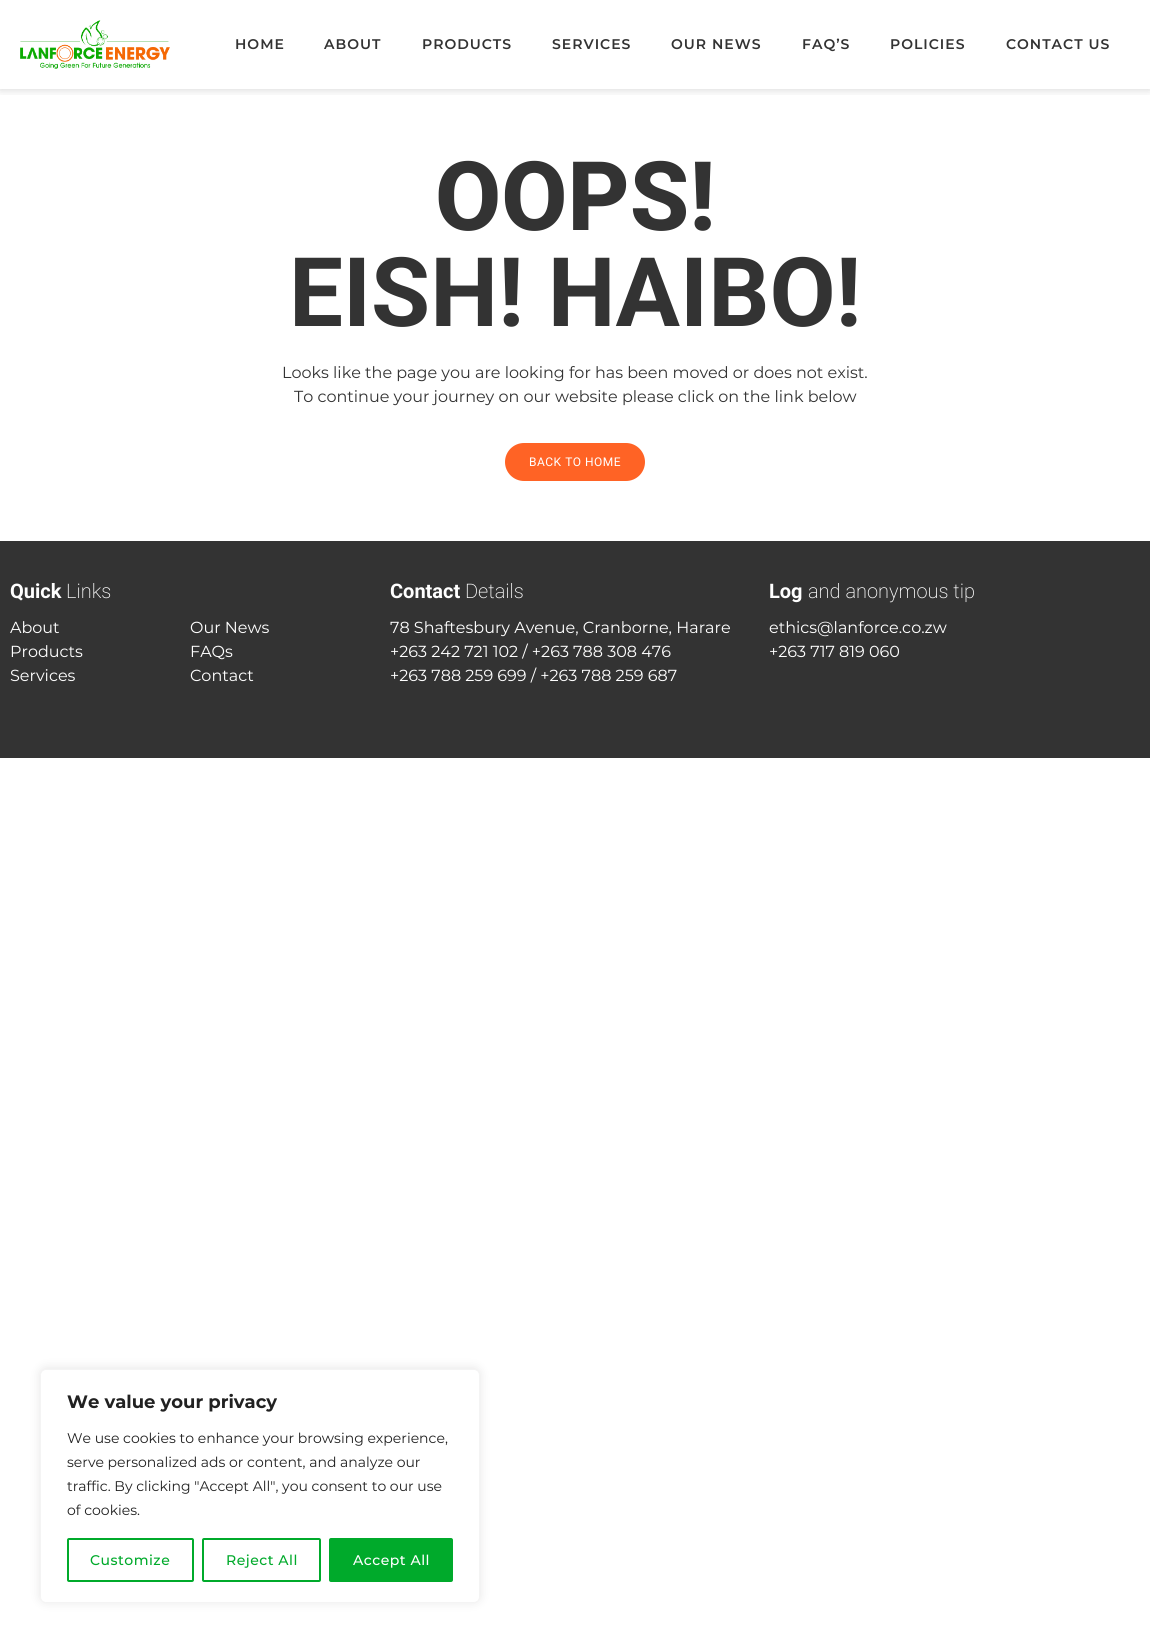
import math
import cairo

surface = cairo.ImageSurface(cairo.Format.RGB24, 1150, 1643)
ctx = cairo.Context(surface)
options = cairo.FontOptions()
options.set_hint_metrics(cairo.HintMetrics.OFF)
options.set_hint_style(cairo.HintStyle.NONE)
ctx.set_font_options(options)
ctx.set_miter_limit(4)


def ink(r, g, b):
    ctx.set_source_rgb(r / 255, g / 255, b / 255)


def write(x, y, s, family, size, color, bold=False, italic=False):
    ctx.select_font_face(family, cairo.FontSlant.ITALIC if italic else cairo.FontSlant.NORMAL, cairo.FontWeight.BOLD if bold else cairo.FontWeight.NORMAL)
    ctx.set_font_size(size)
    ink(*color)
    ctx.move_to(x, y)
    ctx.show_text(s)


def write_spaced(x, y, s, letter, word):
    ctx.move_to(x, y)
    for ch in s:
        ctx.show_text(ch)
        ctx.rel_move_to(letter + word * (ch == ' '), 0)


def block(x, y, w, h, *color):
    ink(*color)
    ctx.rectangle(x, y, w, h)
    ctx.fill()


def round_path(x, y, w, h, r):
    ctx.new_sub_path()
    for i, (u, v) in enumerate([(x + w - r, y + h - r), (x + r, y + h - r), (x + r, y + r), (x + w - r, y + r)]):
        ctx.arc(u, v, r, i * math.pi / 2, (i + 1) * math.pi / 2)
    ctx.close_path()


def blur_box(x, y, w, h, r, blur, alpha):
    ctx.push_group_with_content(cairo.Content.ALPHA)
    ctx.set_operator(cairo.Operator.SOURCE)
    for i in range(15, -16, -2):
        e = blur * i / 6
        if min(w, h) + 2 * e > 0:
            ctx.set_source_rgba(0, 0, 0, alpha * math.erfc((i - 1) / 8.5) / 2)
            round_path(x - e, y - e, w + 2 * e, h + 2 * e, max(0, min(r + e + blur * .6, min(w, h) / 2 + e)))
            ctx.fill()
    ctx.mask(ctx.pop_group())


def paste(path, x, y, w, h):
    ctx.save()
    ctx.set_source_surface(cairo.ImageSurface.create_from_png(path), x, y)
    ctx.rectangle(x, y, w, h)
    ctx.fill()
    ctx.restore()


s1 = dict(family="Roboto ExtraBold", size=96, color=(51, 51, 51))
s2 = dict(family="Roboto", size=96, color=(51, 51, 51), bold=True)
s3 = dict(family="Montserrat", size=16, color=(51, 51, 51))
s4 = dict(family="Roboto", size=20, color=(255, 255, 255), bold=True)
s5 = dict(family="Roboto ExtraLight", size=20, color=(255, 255, 255))
s6 = dict(family="Montserrat", size=16, color=(255, 255, 255))
s7 = dict(family="Montserrat", size=18, color=(33, 33, 33), bold=True)
s8 = dict(family="Montserrat", size=14, color=(33, 33, 33))

ink(255, 255, 255)
ctx.paint()
ctx.save()
ctx.rectangle(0, 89, 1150, 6)
ctx.clip()
ink(0, 0, 0)
blur_box(0, 0, 1150, 89, 0, 5, 0.18)
ctx.restore()
paste("pic1.png", 20, 20, 150, 49)
ctx.select_font_face("Montserrat SemiBold")
ctx.set_font_size(14)
ink(51, 51, 51)
write_spaced(235, 49, "HOME", 1, 0)
write_spaced(324, 49, "ABOUT", 1, 0)
write_spaced(422, 49, "PRODUCTS", 1, 0)
write_spaced(552, 49, "SERVICES", 1, 0)
write_spaced(671, 49, "OUR NEWS", 1, 0)
write_spaced(802, 49, "FAQ’S", 1, 0)
write_spaced(890, 49, "POLICIES", 1, 0)
write_spaced(1006, 49, "CONTACT US", 1, 0)
write(435, 230, "OOPS!", **s1)
write(289, 326, "EISH! HAIBO!", **s2)
write(282, 378, "Looks like the page you are looking for has been moved or does not exist.", **s3)
write(294, 402, "To continue your journey on our website please click on the link below", **s3)
ink(255, 99, 37)
round_path(505, 443, 140, 38, 19)
ctx.fill()
ctx.select_font_face("Roboto")
ctx.set_font_size(12)
ink(255, 255, 255)
write_spaced(529, 466, "BACK TO HOME", 0.5, 0)
block(0, 541, 1150, 217, 51, 51, 51)
write(10, 598, "Quick", **s4)
write(66, 598, "Links", **s5)
write(10, 633, "About", **s6)
write(190, 633, "Our News", **s6)
write(10, 657, "Products", **s6)
write(190, 657, "FAQs", **s6)
write(10, 681, "Services", **s6)
write(190, 681, "Contact", **s6)
write(390, 598, "Contact", **s4)
write(465, 598, "Details", **s5)
write(390, 633, "78 Shaftesbury Avenue, Cranborne, Harare", **s6)
write(390, 657, "+263 242 721 102 / +263 788 308 476", **s6)
write(390, 681, "+263 788 259 699 / +263 788 259 687", **s6)
write(769, 598, "Log", **s4)
write(808, 598, "and anonymous tip", **s5)
write(769, 633, "ethics@lanforce.co.zw", **s6)
write(769, 657, "+263 717 819 060", **s6)
ink(172, 171, 171)
blur_box(40, 1368, 440, 234, 6, 5, 0.3)
ink(255, 255, 255)
round_path(40.5, 1369.5, 439, 233, 5.5)
ctx.fill_preserve()
ink(244, 244, 244)
ctx.set_line_width(1)
ctx.stroke()
write(67, 1408, "We value your privacy", **s7)
write(67, 1443, "We use cookies to enhance your browsing experience,", **s8)
write(67, 1467, "serve personalized ads or content, and analyze our", **s8)
write(67, 1491, "traffic. By clicking \"Accept All\", you consent to our use", **s8)
write(67, 1515, "of cookies.", **s8)
round_path(68, 1539, 125, 42, 1)
ink(0, 170, 43)
ctx.set_line_width(2)
ctx.stroke()
ctx.select_font_face("Montserrat Medium")
write_spaced(90, 1565, "Customize", 0.5, 0)
round_path(203, 1539, 117, 42, 1)
ctx.stroke()
write_spaced(226, 1565, "Reject All", 0.5, 0)
round_path(330, 1539, 122, 42, 1)
ctx.fill_preserve()
ctx.stroke()
ink(255, 255, 255)
write_spaced(353, 1565, "Accept All", 0.5, 0)
surface.write_to_png("screenshot.png")
